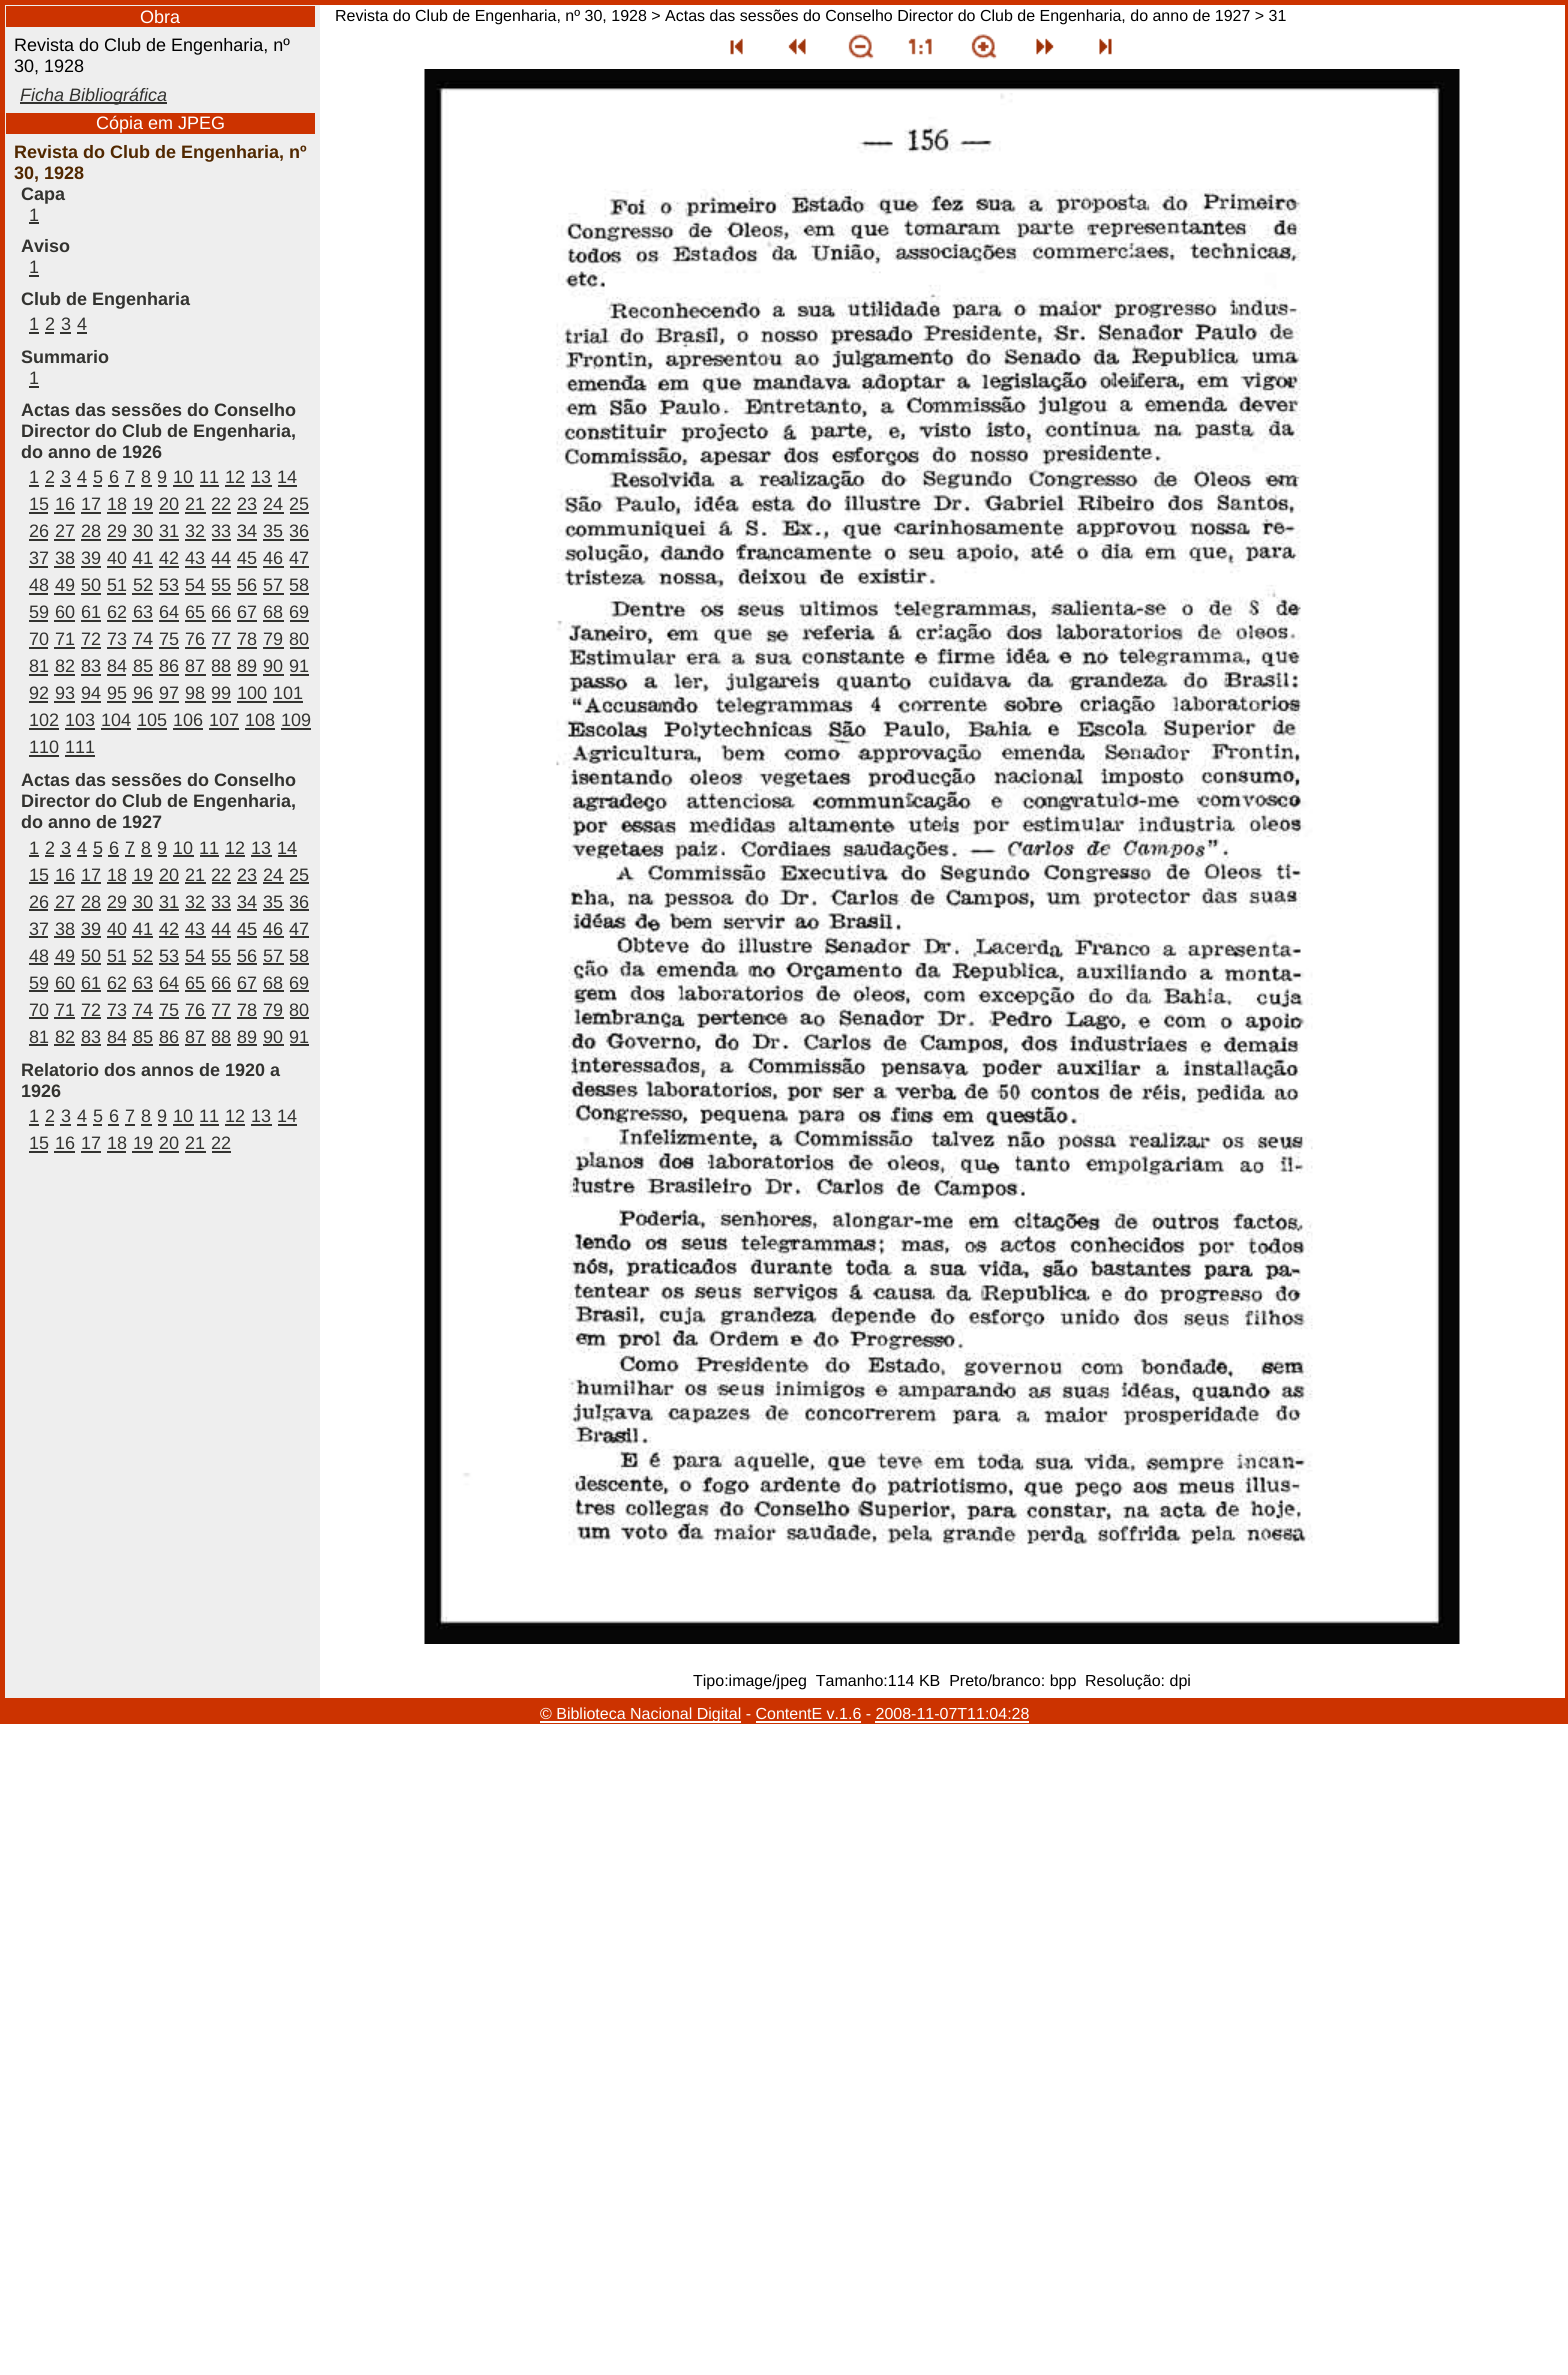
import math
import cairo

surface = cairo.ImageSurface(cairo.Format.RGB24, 1568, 2375)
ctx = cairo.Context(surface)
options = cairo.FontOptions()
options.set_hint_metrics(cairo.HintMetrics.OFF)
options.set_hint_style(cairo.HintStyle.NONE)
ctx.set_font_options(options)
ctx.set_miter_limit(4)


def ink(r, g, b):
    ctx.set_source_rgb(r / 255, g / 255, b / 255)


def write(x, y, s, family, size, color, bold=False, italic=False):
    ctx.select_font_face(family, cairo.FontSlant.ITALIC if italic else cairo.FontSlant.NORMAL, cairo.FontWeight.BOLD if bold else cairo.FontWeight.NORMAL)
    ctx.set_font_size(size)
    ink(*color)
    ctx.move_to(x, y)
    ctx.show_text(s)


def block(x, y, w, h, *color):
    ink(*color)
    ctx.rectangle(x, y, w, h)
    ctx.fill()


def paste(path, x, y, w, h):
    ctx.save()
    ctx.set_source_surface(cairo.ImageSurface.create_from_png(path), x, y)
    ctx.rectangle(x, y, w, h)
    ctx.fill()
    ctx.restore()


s1 = dict(family="Liberation Sans", size=18, color=(255, 255, 255))
s2 = dict(family="Liberation Sans", size=18, color=(0, 0, 0))
s3 = dict(family="Liberation Sans", size=18, color=(51, 51, 48), italic=True)
s4 = dict(family="Liberation Sans", size=18, color=(81, 40, 0), bold=True)
s5 = dict(family="Liberation Sans", size=18, color=(51, 51, 48), bold=True)
s6 = dict(family="Liberation Sans", size=18, color=(51, 51, 48))
s7 = dict(family="Liberation Sans", size=16, color=(0, 0, 0))
s8 = dict(family="Liberation Sans", size=16, color=(255, 255, 255))

ink(255, 255, 255)
ctx.paint()
block(0, 0, 1568, 1724, 204, 51, 0)
block(5, 5, 315, 1693, 238, 238, 238)
block(6, 6, 309, 21, 204, 51, 0)
write(140, 23, "Obra", **s1)
write(14, 51, "Revista do Club de Engenharia, nº", **s2)
write(14, 72, "30, 1928", **s2)
block(20, 102, 147, 2, 51, 51, 48)
write(20, 101, "Ficha Bibliográfica", **s3)
block(6, 113, 309, 21, 204, 51, 0)
write(96, 129, "Cópia em JPEG", **s1)
write(14, 158, "Revista do Club de Engenharia, nº", **s4)
write(14, 179, "30, 1928", **s4)
write(21, 200, "Capa", **s5)
write(29, 221, "1", **s6)
block(29, 222, 10, 2, 51, 51, 48)
write(21, 252, "Aviso", **s5)
write(29, 273, "1", **s6)
block(29, 275, 10, 2, 51, 51, 48)
write(21, 305, "Club de Engenharia", **s5)
write(29, 330, "1", **s6)
block(29, 332, 10, 2, 51, 51, 48)
write(45, 330, "2", **s6)
block(45, 332, 9, 2, 51, 51, 48)
write(61, 330, "3", **s6)
block(60, 332, 11, 2, 51, 51, 48)
write(77, 330, "4", **s6)
block(77, 332, 10, 2, 51, 51, 48)
write(21, 363, "Summario", **s5)
write(29, 384, "1", **s6)
block(29, 386, 10, 2, 51, 51, 48)
write(21, 416, "Actas das sessões do Conselho", **s5)
write(21, 437, "Director do Club de Engenharia,", **s5)
write(21, 458, "do anno de 1926", **s5)
write(29, 483, "1", **s6)
block(29, 485, 10, 2, 51, 51, 48)
write(45, 483, "2", **s6)
block(45, 485, 9, 2, 51, 51, 48)
write(61, 483, "3", **s6)
block(60, 485, 11, 2, 51, 51, 48)
write(77, 483, "4", **s6)
block(77, 485, 10, 2, 51, 51, 48)
write(93, 483, "5", **s6)
block(93, 485, 9, 2, 51, 51, 48)
write(109, 483, "6", **s6)
block(108, 485, 11, 2, 51, 51, 48)
write(125, 483, "7", **s6)
block(125, 485, 10, 2, 51, 51, 48)
write(141, 483, "8", **s6)
block(141, 485, 11, 2, 51, 51, 48)
write(157, 483, "9", **s6)
block(158, 485, 9, 2, 51, 51, 48)
write(173, 483, "10", **s6)
block(173, 485, 21, 2, 51, 51, 48)
write(199, 483, "11", **s6)
block(200, 485, 19, 2, 51, 51, 48)
write(225, 483, "12", **s6)
block(225, 485, 20, 2, 51, 51, 48)
write(251, 483, "13", **s6)
block(251, 485, 21, 2, 51, 51, 48)
write(277, 483, "14", **s6)
block(278, 485, 19, 2, 51, 51, 48)
write(29, 510, "15", **s6)
block(29, 512, 19, 2, 51, 51, 48)
write(55, 510, "16", **s6)
block(54, 512, 21, 2, 51, 51, 48)
write(81, 510, "17", **s6)
block(81, 512, 20, 2, 51, 51, 48)
write(107, 510, "18", **s6)
block(107, 512, 19, 2, 51, 51, 48)
write(133, 510, "19", **s6)
block(132, 512, 21, 2, 51, 51, 48)
write(159, 510, "20", **s6)
block(159, 512, 20, 2, 51, 51, 48)
write(185, 510, "21", **s6)
block(185, 512, 21, 2, 51, 51, 48)
write(211, 510, "22", **s6)
block(212, 512, 19, 2, 51, 51, 48)
write(237, 510, "23", **s6)
block(237, 512, 20, 2, 51, 51, 48)
write(263, 510, "24", **s6)
block(263, 512, 21, 2, 51, 51, 48)
write(289, 510, "25", **s6)
block(290, 512, 19, 2, 51, 51, 48)
write(29, 537, "26", **s6)
block(29, 539, 19, 2, 51, 51, 48)
write(55, 537, "27", **s6)
block(54, 539, 21, 2, 51, 51, 48)
write(81, 537, "28", **s6)
block(81, 539, 20, 2, 51, 51, 48)
write(107, 537, "29", **s6)
block(107, 539, 19, 2, 51, 51, 48)
write(133, 537, "30", **s6)
block(132, 539, 21, 2, 51, 51, 48)
write(159, 537, "31", **s6)
block(159, 539, 20, 2, 51, 51, 48)
write(185, 537, "32", **s6)
block(185, 539, 21, 2, 51, 51, 48)
write(211, 537, "33", **s6)
block(212, 539, 19, 2, 51, 51, 48)
write(237, 537, "34", **s6)
block(237, 539, 20, 2, 51, 51, 48)
write(263, 537, "35", **s6)
block(263, 539, 21, 2, 51, 51, 48)
write(289, 537, "36", **s6)
block(290, 539, 19, 2, 51, 51, 48)
write(29, 564, "37", **s6)
block(29, 566, 19, 2, 51, 51, 48)
write(55, 564, "38", **s6)
block(54, 566, 21, 2, 51, 51, 48)
write(81, 564, "39", **s6)
block(81, 566, 20, 2, 51, 51, 48)
write(107, 564, "40", **s6)
block(107, 566, 19, 2, 51, 51, 48)
write(133, 564, "41", **s6)
block(132, 566, 21, 2, 51, 51, 48)
write(159, 564, "42", **s6)
block(159, 566, 20, 2, 51, 51, 48)
write(185, 564, "43", **s6)
block(185, 566, 21, 2, 51, 51, 48)
write(211, 564, "44", **s6)
block(212, 566, 19, 2, 51, 51, 48)
write(237, 564, "45", **s6)
block(237, 566, 20, 2, 51, 51, 48)
write(263, 564, "46", **s6)
block(263, 566, 21, 2, 51, 51, 48)
write(289, 564, "47", **s6)
block(290, 566, 19, 2, 51, 51, 48)
write(29, 591, "48", **s6)
block(29, 593, 19, 2, 51, 51, 48)
write(55, 591, "49", **s6)
block(54, 593, 21, 2, 51, 51, 48)
write(81, 591, "50", **s6)
block(81, 593, 20, 2, 51, 51, 48)
write(107, 591, "51", **s6)
block(107, 593, 19, 2, 51, 51, 48)
write(133, 591, "52", **s6)
block(132, 593, 21, 2, 51, 51, 48)
write(159, 591, "53", **s6)
block(159, 593, 20, 2, 51, 51, 48)
write(185, 591, "54", **s6)
block(185, 593, 21, 2, 51, 51, 48)
write(211, 591, "55", **s6)
block(212, 593, 19, 2, 51, 51, 48)
write(237, 591, "56", **s6)
block(237, 593, 20, 2, 51, 51, 48)
write(263, 591, "57", **s6)
block(263, 593, 21, 2, 51, 51, 48)
write(289, 591, "58", **s6)
block(290, 593, 19, 2, 51, 51, 48)
write(29, 618, "59", **s6)
block(29, 620, 19, 2, 51, 51, 48)
write(55, 618, "60", **s6)
block(54, 620, 21, 2, 51, 51, 48)
write(81, 618, "61", **s6)
block(81, 620, 20, 2, 51, 51, 48)
write(107, 618, "62", **s6)
block(107, 620, 19, 2, 51, 51, 48)
write(133, 618, "63", **s6)
block(132, 620, 21, 2, 51, 51, 48)
write(159, 618, "64", **s6)
block(159, 620, 20, 2, 51, 51, 48)
write(185, 618, "65", **s6)
block(185, 620, 21, 2, 51, 51, 48)
write(211, 618, "66", **s6)
block(212, 620, 19, 2, 51, 51, 48)
write(237, 618, "67", **s6)
block(237, 620, 20, 2, 51, 51, 48)
write(263, 618, "68", **s6)
block(263, 620, 21, 2, 51, 51, 48)
write(289, 618, "69", **s6)
block(290, 620, 19, 2, 51, 51, 48)
write(29, 645, "70", **s6)
block(29, 647, 19, 2, 51, 51, 48)
write(55, 645, "71", **s6)
block(54, 647, 21, 2, 51, 51, 48)
write(81, 645, "72", **s6)
block(81, 647, 20, 2, 51, 51, 48)
write(107, 645, "73", **s6)
block(107, 647, 19, 2, 51, 51, 48)
write(133, 645, "74", **s6)
block(132, 647, 21, 2, 51, 51, 48)
write(159, 645, "75", **s6)
block(159, 647, 20, 2, 51, 51, 48)
write(185, 645, "76", **s6)
block(185, 647, 21, 2, 51, 51, 48)
write(211, 645, "77", **s6)
block(212, 647, 19, 2, 51, 51, 48)
write(237, 645, "78", **s6)
block(237, 647, 20, 2, 51, 51, 48)
write(263, 645, "79", **s6)
block(263, 647, 21, 2, 51, 51, 48)
write(289, 645, "80", **s6)
block(290, 647, 19, 2, 51, 51, 48)
write(29, 672, "81", **s6)
block(29, 674, 19, 2, 51, 51, 48)
write(55, 672, "82", **s6)
block(54, 674, 21, 2, 51, 51, 48)
write(81, 672, "83", **s6)
block(81, 674, 20, 2, 51, 51, 48)
write(107, 672, "84", **s6)
block(107, 674, 19, 2, 51, 51, 48)
write(133, 672, "85", **s6)
block(132, 674, 21, 2, 51, 51, 48)
write(159, 672, "86", **s6)
block(159, 674, 20, 2, 51, 51, 48)
write(185, 672, "87", **s6)
block(185, 674, 21, 2, 51, 51, 48)
write(211, 672, "88", **s6)
block(212, 674, 19, 2, 51, 51, 48)
write(237, 672, "89", **s6)
block(237, 674, 20, 2, 51, 51, 48)
write(263, 672, "90", **s6)
block(263, 674, 21, 2, 51, 51, 48)
write(289, 672, "91", **s6)
block(290, 674, 19, 2, 51, 51, 48)
write(29, 699, "92", **s6)
block(29, 701, 19, 2, 51, 51, 48)
write(55, 699, "93", **s6)
block(54, 701, 21, 2, 51, 51, 48)
write(81, 699, "94", **s6)
block(81, 701, 20, 2, 51, 51, 48)
write(107, 699, "95", **s6)
block(107, 701, 19, 2, 51, 51, 48)
write(133, 699, "96", **s6)
block(132, 701, 21, 2, 51, 51, 48)
write(159, 699, "97", **s6)
block(159, 701, 20, 2, 51, 51, 48)
write(185, 699, "98", **s6)
block(185, 701, 21, 2, 51, 51, 48)
write(211, 699, "99", **s6)
block(212, 701, 19, 2, 51, 51, 48)
write(237, 699, "100", **s6)
block(237, 701, 30, 2, 51, 51, 48)
write(273, 699, "101", **s6)
block(273, 701, 30, 2, 51, 51, 48)
write(29, 726, "102", **s6)
block(29, 728, 30, 2, 51, 51, 48)
write(65, 726, "103", **s6)
block(65, 728, 30, 2, 51, 51, 48)
write(101, 726, "104", **s6)
block(101, 728, 30, 2, 51, 51, 48)
write(137, 726, "105", **s6)
block(137, 728, 30, 2, 51, 51, 48)
write(173, 726, "106", **s6)
block(173, 728, 30, 2, 51, 51, 48)
write(209, 726, "107", **s6)
block(209, 728, 30, 2, 51, 51, 48)
write(245, 726, "108", **s6)
block(245, 728, 30, 2, 51, 51, 48)
write(281, 726, "109", **s6)
block(281, 728, 30, 2, 51, 51, 48)
write(29, 753, "110", **s6)
block(29, 755, 30, 2, 51, 51, 48)
write(65, 753, "111", **s6)
block(65, 755, 30, 2, 51, 51, 48)
write(21, 786, "Actas das sessões do Conselho", **s5)
write(21, 807, "Director do Club de Engenharia,", **s5)
write(21, 828, "do anno de 1927", **s5)
write(29, 854, "1", **s6)
block(29, 855, 10, 2, 51, 51, 48)
write(45, 854, "2", **s6)
block(45, 855, 9, 2, 51, 51, 48)
write(61, 854, "3", **s6)
block(60, 855, 11, 2, 51, 51, 48)
write(77, 854, "4", **s6)
block(77, 855, 10, 2, 51, 51, 48)
write(93, 854, "5", **s6)
block(93, 855, 9, 2, 51, 51, 48)
write(109, 854, "6", **s6)
block(108, 855, 11, 2, 51, 51, 48)
write(125, 854, "7", **s6)
block(125, 855, 10, 2, 51, 51, 48)
write(141, 854, "8", **s6)
block(141, 855, 11, 2, 51, 51, 48)
write(157, 854, "9", **s6)
block(158, 855, 9, 2, 51, 51, 48)
write(173, 854, "10", **s6)
block(173, 855, 21, 2, 51, 51, 48)
write(199, 854, "11", **s6)
block(200, 855, 19, 2, 51, 51, 48)
write(225, 854, "12", **s6)
block(225, 855, 20, 2, 51, 51, 48)
write(251, 854, "13", **s6)
block(251, 855, 21, 2, 51, 51, 48)
write(277, 854, "14", **s6)
block(278, 855, 19, 2, 51, 51, 48)
write(29, 881, "15", **s6)
block(29, 882, 19, 2, 51, 51, 48)
write(55, 881, "16", **s6)
block(54, 882, 21, 2, 51, 51, 48)
write(81, 881, "17", **s6)
block(81, 882, 20, 2, 51, 51, 48)
write(107, 881, "18", **s6)
block(107, 882, 19, 2, 51, 51, 48)
write(133, 881, "19", **s6)
block(132, 882, 21, 2, 51, 51, 48)
write(159, 881, "20", **s6)
block(159, 882, 20, 2, 51, 51, 48)
write(185, 881, "21", **s6)
block(185, 882, 21, 2, 51, 51, 48)
write(211, 881, "22", **s6)
block(212, 882, 19, 2, 51, 51, 48)
write(237, 881, "23", **s6)
block(237, 882, 20, 2, 51, 51, 48)
write(263, 881, "24", **s6)
block(263, 882, 21, 2, 51, 51, 48)
write(289, 881, "25", **s6)
block(290, 882, 19, 2, 51, 51, 48)
write(29, 908, "26", **s6)
block(29, 909, 19, 2, 51, 51, 48)
write(55, 908, "27", **s6)
block(54, 909, 21, 2, 51, 51, 48)
write(81, 908, "28", **s6)
block(81, 909, 20, 2, 51, 51, 48)
write(107, 908, "29", **s6)
block(107, 909, 19, 2, 51, 51, 48)
write(133, 908, "30", **s6)
block(132, 909, 21, 2, 51, 51, 48)
write(159, 908, "31", **s6)
block(159, 909, 20, 2, 51, 51, 48)
write(185, 908, "32", **s6)
block(185, 909, 21, 2, 51, 51, 48)
write(211, 908, "33", **s6)
block(212, 909, 19, 2, 51, 51, 48)
write(237, 908, "34", **s6)
block(237, 909, 20, 2, 51, 51, 48)
write(263, 908, "35", **s6)
block(263, 909, 21, 2, 51, 51, 48)
write(289, 908, "36", **s6)
block(290, 909, 19, 2, 51, 51, 48)
write(29, 935, "37", **s6)
block(29, 936, 19, 2, 51, 51, 48)
write(55, 935, "38", **s6)
block(54, 936, 21, 2, 51, 51, 48)
write(81, 935, "39", **s6)
block(81, 936, 20, 2, 51, 51, 48)
write(107, 935, "40", **s6)
block(107, 936, 19, 2, 51, 51, 48)
write(133, 935, "41", **s6)
block(132, 936, 21, 2, 51, 51, 48)
write(159, 935, "42", **s6)
block(159, 936, 20, 2, 51, 51, 48)
write(185, 935, "43", **s6)
block(185, 936, 21, 2, 51, 51, 48)
write(211, 935, "44", **s6)
block(212, 936, 19, 2, 51, 51, 48)
write(237, 935, "45", **s6)
block(237, 936, 20, 2, 51, 51, 48)
write(263, 935, "46", **s6)
block(263, 936, 21, 2, 51, 51, 48)
write(289, 935, "47", **s6)
block(290, 936, 19, 2, 51, 51, 48)
write(29, 962, "48", **s6)
block(29, 963, 19, 2, 51, 51, 48)
write(55, 962, "49", **s6)
block(54, 963, 21, 2, 51, 51, 48)
write(81, 962, "50", **s6)
block(81, 963, 20, 2, 51, 51, 48)
write(107, 962, "51", **s6)
block(107, 963, 19, 2, 51, 51, 48)
write(133, 962, "52", **s6)
block(132, 963, 21, 2, 51, 51, 48)
write(159, 962, "53", **s6)
block(159, 963, 20, 2, 51, 51, 48)
write(185, 962, "54", **s6)
block(185, 963, 21, 2, 51, 51, 48)
write(211, 962, "55", **s6)
block(212, 963, 19, 2, 51, 51, 48)
write(237, 962, "56", **s6)
block(237, 963, 20, 2, 51, 51, 48)
write(263, 962, "57", **s6)
block(263, 963, 21, 2, 51, 51, 48)
write(289, 962, "58", **s6)
block(290, 963, 19, 2, 51, 51, 48)
write(29, 989, "59", **s6)
block(29, 990, 19, 2, 51, 51, 48)
write(55, 989, "60", **s6)
block(54, 990, 21, 2, 51, 51, 48)
write(81, 989, "61", **s6)
block(81, 990, 20, 2, 51, 51, 48)
write(107, 989, "62", **s6)
block(107, 990, 19, 2, 51, 51, 48)
write(133, 989, "63", **s6)
block(132, 990, 21, 2, 51, 51, 48)
write(159, 989, "64", **s6)
block(159, 990, 20, 2, 51, 51, 48)
write(185, 989, "65", **s6)
block(185, 990, 21, 2, 51, 51, 48)
write(211, 989, "66", **s6)
block(212, 990, 19, 2, 51, 51, 48)
write(237, 989, "67", **s6)
block(237, 990, 20, 2, 51, 51, 48)
write(263, 989, "68", **s6)
block(263, 990, 21, 2, 51, 51, 48)
write(289, 989, "69", **s6)
block(290, 990, 19, 2, 51, 51, 48)
write(29, 1016, "70", **s6)
block(29, 1017, 19, 2, 51, 51, 48)
write(55, 1016, "71", **s6)
block(54, 1017, 21, 2, 51, 51, 48)
write(81, 1016, "72", **s6)
block(81, 1017, 20, 2, 51, 51, 48)
write(107, 1016, "73", **s6)
block(107, 1017, 19, 2, 51, 51, 48)
write(133, 1016, "74", **s6)
block(132, 1017, 21, 2, 51, 51, 48)
write(159, 1016, "75", **s6)
block(159, 1017, 20, 2, 51, 51, 48)
write(185, 1016, "76", **s6)
block(185, 1017, 21, 2, 51, 51, 48)
write(211, 1016, "77", **s6)
block(212, 1017, 19, 2, 51, 51, 48)
write(237, 1016, "78", **s6)
block(237, 1017, 20, 2, 51, 51, 48)
write(263, 1016, "79", **s6)
block(263, 1017, 21, 2, 51, 51, 48)
write(289, 1016, "80", **s6)
block(290, 1017, 19, 2, 51, 51, 48)
write(29, 1043, "81", **s6)
block(29, 1044, 19, 2, 51, 51, 48)
write(55, 1043, "82", **s6)
block(54, 1044, 21, 2, 51, 51, 48)
write(81, 1043, "83", **s6)
block(81, 1044, 20, 2, 51, 51, 48)
write(107, 1043, "84", **s6)
block(107, 1044, 19, 2, 51, 51, 48)
write(133, 1043, "85", **s6)
block(132, 1044, 21, 2, 51, 51, 48)
write(159, 1043, "86", **s6)
block(159, 1044, 20, 2, 51, 51, 48)
write(185, 1043, "87", **s6)
block(185, 1044, 21, 2, 51, 51, 48)
write(211, 1043, "88", **s6)
block(212, 1044, 19, 2, 51, 51, 48)
write(237, 1043, "89", **s6)
block(237, 1044, 20, 2, 51, 51, 48)
write(263, 1043, "90", **s6)
block(263, 1044, 21, 2, 51, 51, 48)
write(289, 1043, "91", **s6)
block(290, 1044, 19, 2, 51, 51, 48)
write(21, 1076, "Relatorio dos annos de 1920 a", **s5)
write(21, 1097, "1926", **s5)
write(29, 1122, "1", **s6)
block(29, 1124, 10, 2, 51, 51, 48)
write(45, 1122, "2", **s6)
block(45, 1124, 9, 2, 51, 51, 48)
write(61, 1122, "3", **s6)
block(60, 1124, 11, 2, 51, 51, 48)
write(77, 1122, "4", **s6)
block(77, 1124, 10, 2, 51, 51, 48)
write(93, 1122, "5", **s6)
block(93, 1124, 9, 2, 51, 51, 48)
write(109, 1122, "6", **s6)
block(108, 1124, 11, 2, 51, 51, 48)
write(125, 1122, "7", **s6)
block(125, 1124, 10, 2, 51, 51, 48)
write(141, 1122, "8", **s6)
block(141, 1124, 11, 2, 51, 51, 48)
write(157, 1122, "9", **s6)
block(158, 1124, 9, 2, 51, 51, 48)
write(173, 1122, "10", **s6)
block(173, 1124, 21, 2, 51, 51, 48)
write(199, 1122, "11", **s6)
block(200, 1124, 19, 2, 51, 51, 48)
write(225, 1122, "12", **s6)
block(225, 1124, 20, 2, 51, 51, 48)
write(251, 1122, "13", **s6)
block(251, 1124, 21, 2, 51, 51, 48)
write(277, 1122, "14", **s6)
block(278, 1124, 19, 2, 51, 51, 48)
write(29, 1149, "15", **s6)
block(29, 1151, 19, 2, 51, 51, 48)
write(55, 1149, "16", **s6)
block(54, 1151, 21, 2, 51, 51, 48)
write(81, 1149, "17", **s6)
block(81, 1151, 20, 2, 51, 51, 48)
write(107, 1149, "18", **s6)
block(107, 1151, 19, 2, 51, 51, 48)
write(133, 1149, "19", **s6)
block(132, 1151, 21, 2, 51, 51, 48)
write(159, 1149, "20", **s6)
block(159, 1151, 20, 2, 51, 51, 48)
write(185, 1149, "21", **s6)
block(185, 1151, 21, 2, 51, 51, 48)
write(211, 1149, "22", **s6)
block(212, 1151, 19, 2, 51, 51, 48)
block(320, 5, 1245, 1693, 255, 255, 255)
write(335, 21, "Revista do Club de Engenharia, nº 30, 1928 > Actas das sessões do Conselho Director do Club de Engenharia, do anno de 1927 > 31", **s7)
paste("pic1.png", 730, 38, 13, 17)
paste("pic2.png", 788, 38, 18, 17)
paste("pic3.png", 848, 34, 26, 25)
paste("pic4.png", 908, 38, 24, 17)
paste("pic5.png", 971, 34, 26, 25)
paste("pic6.png", 1036, 38, 18, 17)
paste("pic7.png", 1099, 38, 13, 17)
paste("pic8.png", 424, 69, 1036, 1575)
write(693, 1686, "Tipo:image/jpeg  Tamanho:114 KB  Preto/branco: bpp", **s7)
write(1085, 1686, "Resolução: dpi", **s7)
block(540, 1721, 201, 2, 255, 255, 255)
write(540, 1719, "© Biblioteca Nacional Digital - ContentE v.1.6 - 2008-11-07T11:04:28", **s8)
block(756, 1721, 105, 2, 255, 255, 255)
block(875, 1721, 154, 2, 255, 255, 255)
surface.write_to_png("screenshot.png")
